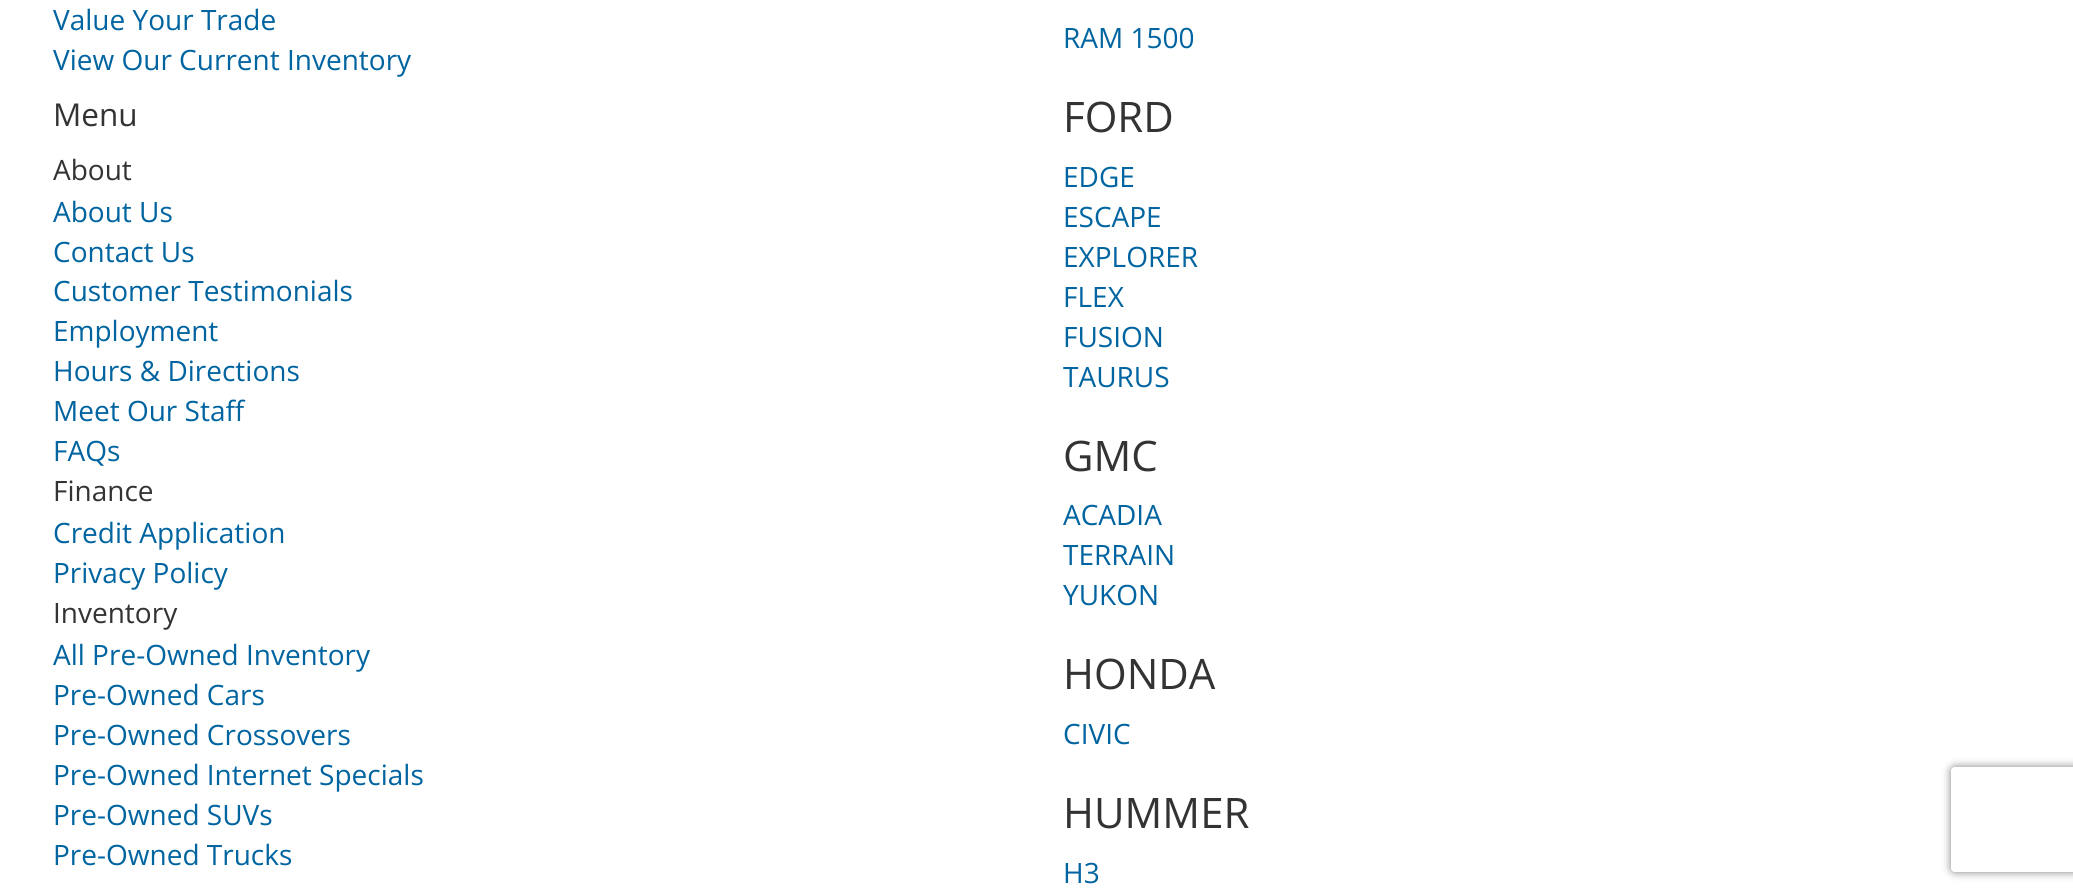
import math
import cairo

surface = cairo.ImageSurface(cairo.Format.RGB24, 2073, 895)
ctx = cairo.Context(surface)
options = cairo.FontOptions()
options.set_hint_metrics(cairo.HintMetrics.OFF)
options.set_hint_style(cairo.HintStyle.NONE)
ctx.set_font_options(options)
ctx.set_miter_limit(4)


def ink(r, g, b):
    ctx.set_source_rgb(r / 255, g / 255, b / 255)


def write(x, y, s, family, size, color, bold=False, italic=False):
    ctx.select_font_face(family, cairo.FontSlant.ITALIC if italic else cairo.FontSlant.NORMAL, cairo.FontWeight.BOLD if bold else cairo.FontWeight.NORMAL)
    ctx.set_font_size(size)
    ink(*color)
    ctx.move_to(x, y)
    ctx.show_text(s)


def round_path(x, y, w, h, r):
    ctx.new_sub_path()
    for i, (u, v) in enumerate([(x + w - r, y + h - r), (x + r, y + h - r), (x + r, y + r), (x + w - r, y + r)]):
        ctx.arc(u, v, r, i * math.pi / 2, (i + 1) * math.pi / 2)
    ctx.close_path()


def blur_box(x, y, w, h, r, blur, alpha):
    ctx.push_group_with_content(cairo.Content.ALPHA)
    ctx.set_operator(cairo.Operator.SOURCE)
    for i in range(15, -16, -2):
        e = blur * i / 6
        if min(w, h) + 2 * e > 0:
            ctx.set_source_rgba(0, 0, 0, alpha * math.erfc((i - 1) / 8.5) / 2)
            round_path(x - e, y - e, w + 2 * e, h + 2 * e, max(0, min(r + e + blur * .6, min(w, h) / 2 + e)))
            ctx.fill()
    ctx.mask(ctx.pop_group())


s1 = dict(family="Open Sans", size=28, color=(0, 100, 160))
s2 = dict(family="Open Sans", size=31.5, color=(51, 51, 51))
s3 = dict(family="Open Sans", size=28, color=(51, 51, 51))
s4 = dict(family="Open Sans", size=42, color=(51, 51, 51))

ink(255, 255, 255)
ctx.paint()
write(53, 30, "Value Your Trade", **s1)
write(53, 70, "View Our Current Inventory", **s1)
write(53, 126, "Menu", **s2)
write(53, 180, "About", **s3)
write(53, 222, "About Us", **s1)
write(53, 262, "Contact Us", **s1)
write(53, 301, "Customer Testimonials", **s1)
write(53, 341, "Employment", **s1)
write(53, 381, "Hours & Directions", **s1)
write(53, 421, "Meet Our Staff", **s1)
write(53, 461, "FAQs", **s1)
write(53, 501, "Finance", **s3)
write(53, 543, "Credit Application", **s1)
write(53, 583, "Privacy Policy", **s1)
write(53, 623, "Inventory", **s3)
write(53, 665, "All Pre-Owned Inventory", **s1)
write(53, 705, "Pre-Owned Cars", **s1)
write(53, 745, "Pre-Owned Crossovers", **s1)
write(53, 785, "Pre-Owned Internet Specials", **s1)
write(53, 825, "Pre-Owned SUVs", **s1)
write(53, 865, "Pre-Owned Trucks", **s1)
write(1063, 48, "RAM 1500", **s1)
write(1063, 132, "FORD", **s4)
write(1063, 187, "EDGE", **s1)
write(1063, 227, "ESCAPE", **s1)
write(1063, 267, "EXPLORER", **s1)
write(1063, 307, "FLEX", **s1)
write(1063, 347, "FUSION", **s1)
write(1063, 387, "TAURUS", **s1)
write(1063, 471, "GMC", **s4)
write(1063, 525, "ACADIA", **s1)
write(1063, 565, "TERRAIN", **s1)
write(1063, 605, "YUKON", **s1)
write(1063, 689, "HONDA", **s4)
write(1063, 744, "CIVIC", **s1)
write(1063, 828, "HUMMER", **s4)
write(1063, 883, "H3", **s1)
ctx.save()
ctx.set_fill_rule(cairo.FillRule.EVEN_ODD)
ctx.new_path()
ctx.move_to(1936, 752)
ctx.line_to(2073, 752)
ctx.line_to(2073, 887)
ctx.line_to(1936, 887)
ctx.close_path()
ctx.move_to(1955, 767)
ctx.line_to(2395, 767)
ctx.curve_to(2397, 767, 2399, 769, 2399, 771)
ctx.line_to(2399, 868)
ctx.curve_to(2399, 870, 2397, 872, 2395, 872)
ctx.line_to(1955, 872)
ctx.curve_to(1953, 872, 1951, 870, 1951, 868)
ctx.line_to(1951, 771)
ctx.curve_to(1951, 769, 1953, 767, 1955, 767)
ctx.close_path()
ctx.clip()
ink(128, 128, 128)
blur_box(1951, 767, 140, 105, 4, 4.5, 1)
ctx.restore()
surface.write_to_png("screenshot.png")
